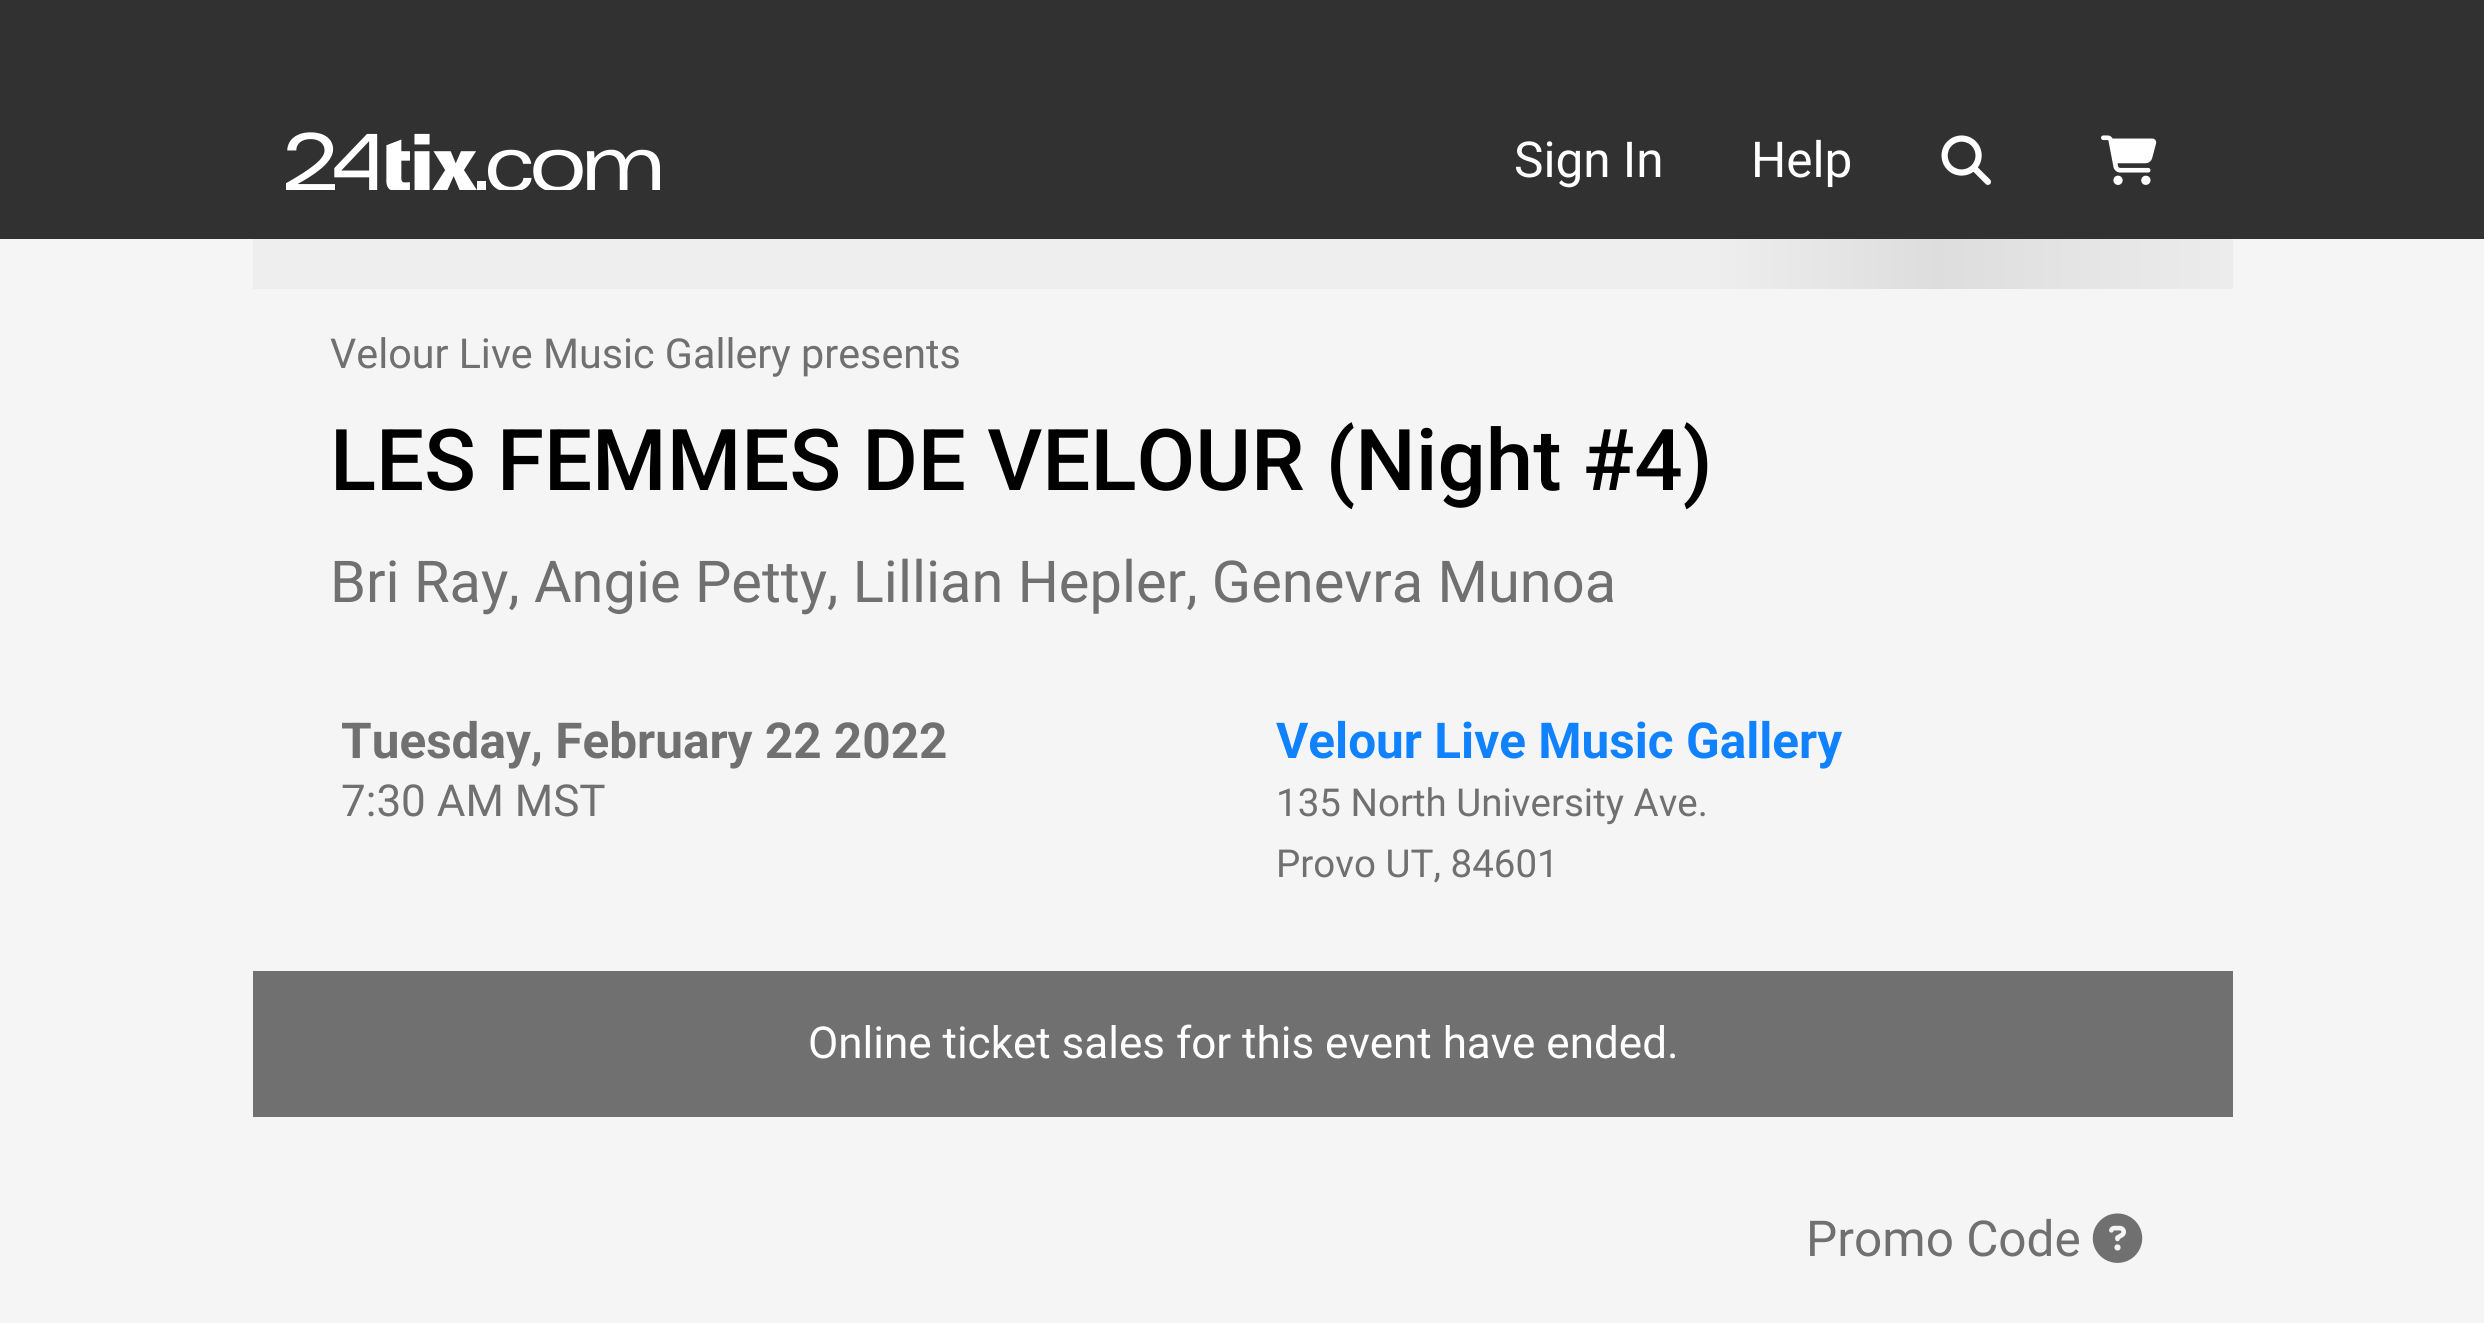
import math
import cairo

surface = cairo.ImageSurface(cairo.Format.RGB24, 2484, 1323)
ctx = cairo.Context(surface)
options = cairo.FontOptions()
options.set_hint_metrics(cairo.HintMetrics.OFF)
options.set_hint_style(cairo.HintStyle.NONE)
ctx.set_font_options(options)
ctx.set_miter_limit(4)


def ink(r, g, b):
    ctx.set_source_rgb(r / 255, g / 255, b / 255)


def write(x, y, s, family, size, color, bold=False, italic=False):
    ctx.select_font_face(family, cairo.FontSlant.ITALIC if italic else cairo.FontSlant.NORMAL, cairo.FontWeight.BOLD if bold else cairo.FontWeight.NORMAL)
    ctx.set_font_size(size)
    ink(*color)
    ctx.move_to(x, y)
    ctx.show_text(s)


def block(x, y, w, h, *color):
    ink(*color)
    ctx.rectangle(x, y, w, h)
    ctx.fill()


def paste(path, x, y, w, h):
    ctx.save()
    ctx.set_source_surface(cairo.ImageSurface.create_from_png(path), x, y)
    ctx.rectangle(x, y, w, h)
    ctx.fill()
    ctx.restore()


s1 = dict(family="Roboto", size=49.5, color=(255, 255, 255))
s2 = dict(family="Roboto", size=41.25, color=(112, 112, 112))
s3 = dict(family="Roboto Medium", size=85.25, color=(0, 0, 0))
s4 = dict(family="Roboto", size=57.75, color=(112, 112, 112))
s5 = dict(family="Roboto", size=49.5, color=(112, 112, 112), bold=True)
s6 = dict(family="Roboto", size=44, color=(112, 112, 112))
s7 = dict(family="Roboto", size=49.5, color=(16, 130, 255), bold=True)
s8 = dict(family="Roboto", size=38.5, color=(112, 112, 112))
s9 = dict(family="Roboto", size=44, color=(255, 255, 255))
s10 = dict(family="Roboto", size=49.5, color=(112, 112, 112))

ink(245, 245, 245)
ctx.paint()
block(0, 0, 2484, 239, 49, 49, 49)
paste("pic1.png", 286, 132, 374, 58)
write(1514, 177, "Sign In", **s1)
write(1751, 177, "Help", **s1)
paste("pic2.png", 1941, 135, 50, 50)
paste("pic3.png", 2101, 135, 56, 50)
gradient = cairo.LinearGradient(-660, 382, 1540, 382)
gradient.add_color_stop_rgba(0.08, 0.933, 0.933, 0.933, 1)
gradient.add_color_stop_rgba(0.18, 0.867, 0.867, 0.867, 1)
gradient.add_color_stop_rgba(0.33, 0.933, 0.933, 0.933, 1)
ctx.set_source(gradient)
ctx.rectangle(253, 239, 1287, 50)
ctx.fill()
gradient = cairo.LinearGradient(1540, 382, 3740, 382)
gradient.add_color_stop_rgba(0.08, 0.933, 0.933, 0.933, 1)
gradient.add_color_stop_rgba(0.18, 0.867, 0.867, 0.867, 1)
gradient.add_color_stop_rgba(0.33, 0.933, 0.933, 0.933, 1)
ctx.set_source(gradient)
ctx.rectangle(1540, 239, 693, 50)
ctx.fill()
write(330, 368, "Velour Live Music Gallery presents", **s2)
write(330, 490, "LES FEMMES DE VELOUR (Night #4)", **s3)
write(330, 602, "Bri Ray, Angie Petty, Lillian Hepler, Genevra Munoa", **s4)
write(341, 758, "Tuesday, February 22 2022", **s5)
write(341, 816, "7:30 AM MST", **s6)
write(1276, 758, "Velour Live Music Gallery", **s7)
write(1276, 816, "135 North University Ave.", **s8)
write(1276, 877, "Provo UT, 84601", **s8)
block(253, 971, 1980, 146, 112, 112, 112)
write(808, 1058, "Online ticket sales for this event have ended.", **s9)
write(1806, 1256, "Promo Code", **s10)
paste("pic4.png", 2092, 1213, 51, 50)
surface.write_to_png("screenshot.png")
